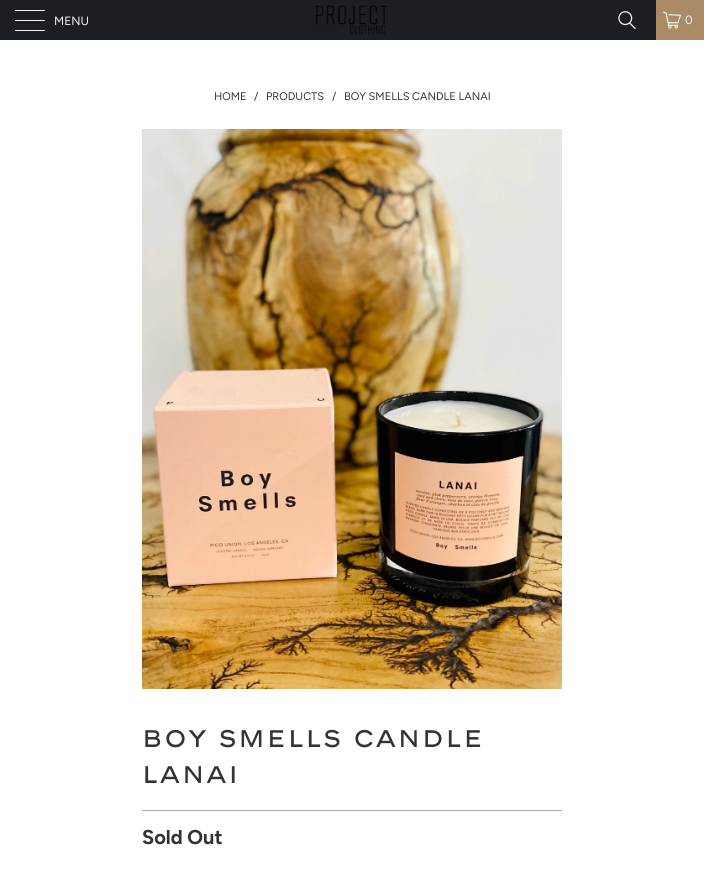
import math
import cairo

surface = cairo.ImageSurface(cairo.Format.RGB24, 704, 869)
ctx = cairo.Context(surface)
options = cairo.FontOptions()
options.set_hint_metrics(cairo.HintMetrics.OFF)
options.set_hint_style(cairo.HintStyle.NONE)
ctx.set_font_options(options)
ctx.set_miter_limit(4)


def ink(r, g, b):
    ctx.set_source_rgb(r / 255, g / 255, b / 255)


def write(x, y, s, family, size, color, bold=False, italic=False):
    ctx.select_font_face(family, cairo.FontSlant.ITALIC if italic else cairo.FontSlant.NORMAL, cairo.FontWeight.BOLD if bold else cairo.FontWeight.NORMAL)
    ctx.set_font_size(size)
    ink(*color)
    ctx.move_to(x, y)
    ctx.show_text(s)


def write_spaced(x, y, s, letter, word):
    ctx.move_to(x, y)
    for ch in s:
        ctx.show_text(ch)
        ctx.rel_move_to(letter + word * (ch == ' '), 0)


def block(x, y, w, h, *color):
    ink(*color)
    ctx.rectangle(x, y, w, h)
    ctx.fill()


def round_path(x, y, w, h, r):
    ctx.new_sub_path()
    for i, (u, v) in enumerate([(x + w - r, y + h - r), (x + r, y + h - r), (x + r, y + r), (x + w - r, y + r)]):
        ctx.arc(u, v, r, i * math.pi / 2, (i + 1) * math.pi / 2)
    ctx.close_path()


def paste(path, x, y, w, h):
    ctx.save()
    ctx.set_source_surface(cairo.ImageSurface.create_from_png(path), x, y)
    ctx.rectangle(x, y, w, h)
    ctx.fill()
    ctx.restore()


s1 = dict(family="Figtree", size=12, color=(244, 244, 244))
s2 = dict(family="Figtree", size=11, color=(51, 51, 51))
s3 = dict(family="Figtree", size=20, color=(51, 51, 51), bold=True)

ink(255, 255, 255)
ctx.paint()
block(0, 0, 656, 40, 27, 31, 35)
ink(244, 244, 244)
round_path(15, 10, 30, 1, 0.5)
ctx.fill()
round_path(15, 20, 30, 1, 0.5)
ctx.fill()
round_path(15, 30, 30, 1, 0.5)
ctx.fill()
write(54, 25, "MENU", **s1)
paste("pic1.png", 316, 5, 72, 30)
paste("pic2.png", 618, 11, 18, 19)
block(656, 0, 48, 40, 171, 139, 101)
paste("pic3.png", 663, 11, 18, 18)
ink(244, 244, 244)
write_spaced(685, 24, "0", 1, 0)
write(214, 100, "HOME", **s2)
write(254, 100, "/", **s2)
write(266, 100, "PRODUCTS", **s2)
write(332, 100, "/", **s2)
write(344, 100, "BOY SMELLS CANDLE LANAI", **s2)
paste("pic4.png", 142, 129, 420, 560)
ctx.select_font_face("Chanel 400")
ctx.set_font_size(24)
write_spaced(142, 747, "BOY SMELLS CANDLE", 2, 0)
write_spaced(142, 783, "LANAI", 2, 0)
block(142, 810, 420, 1, 170, 170, 170)
write(142, 844, "Sold Out", **s3)
surface.write_to_png("screenshot.png")
